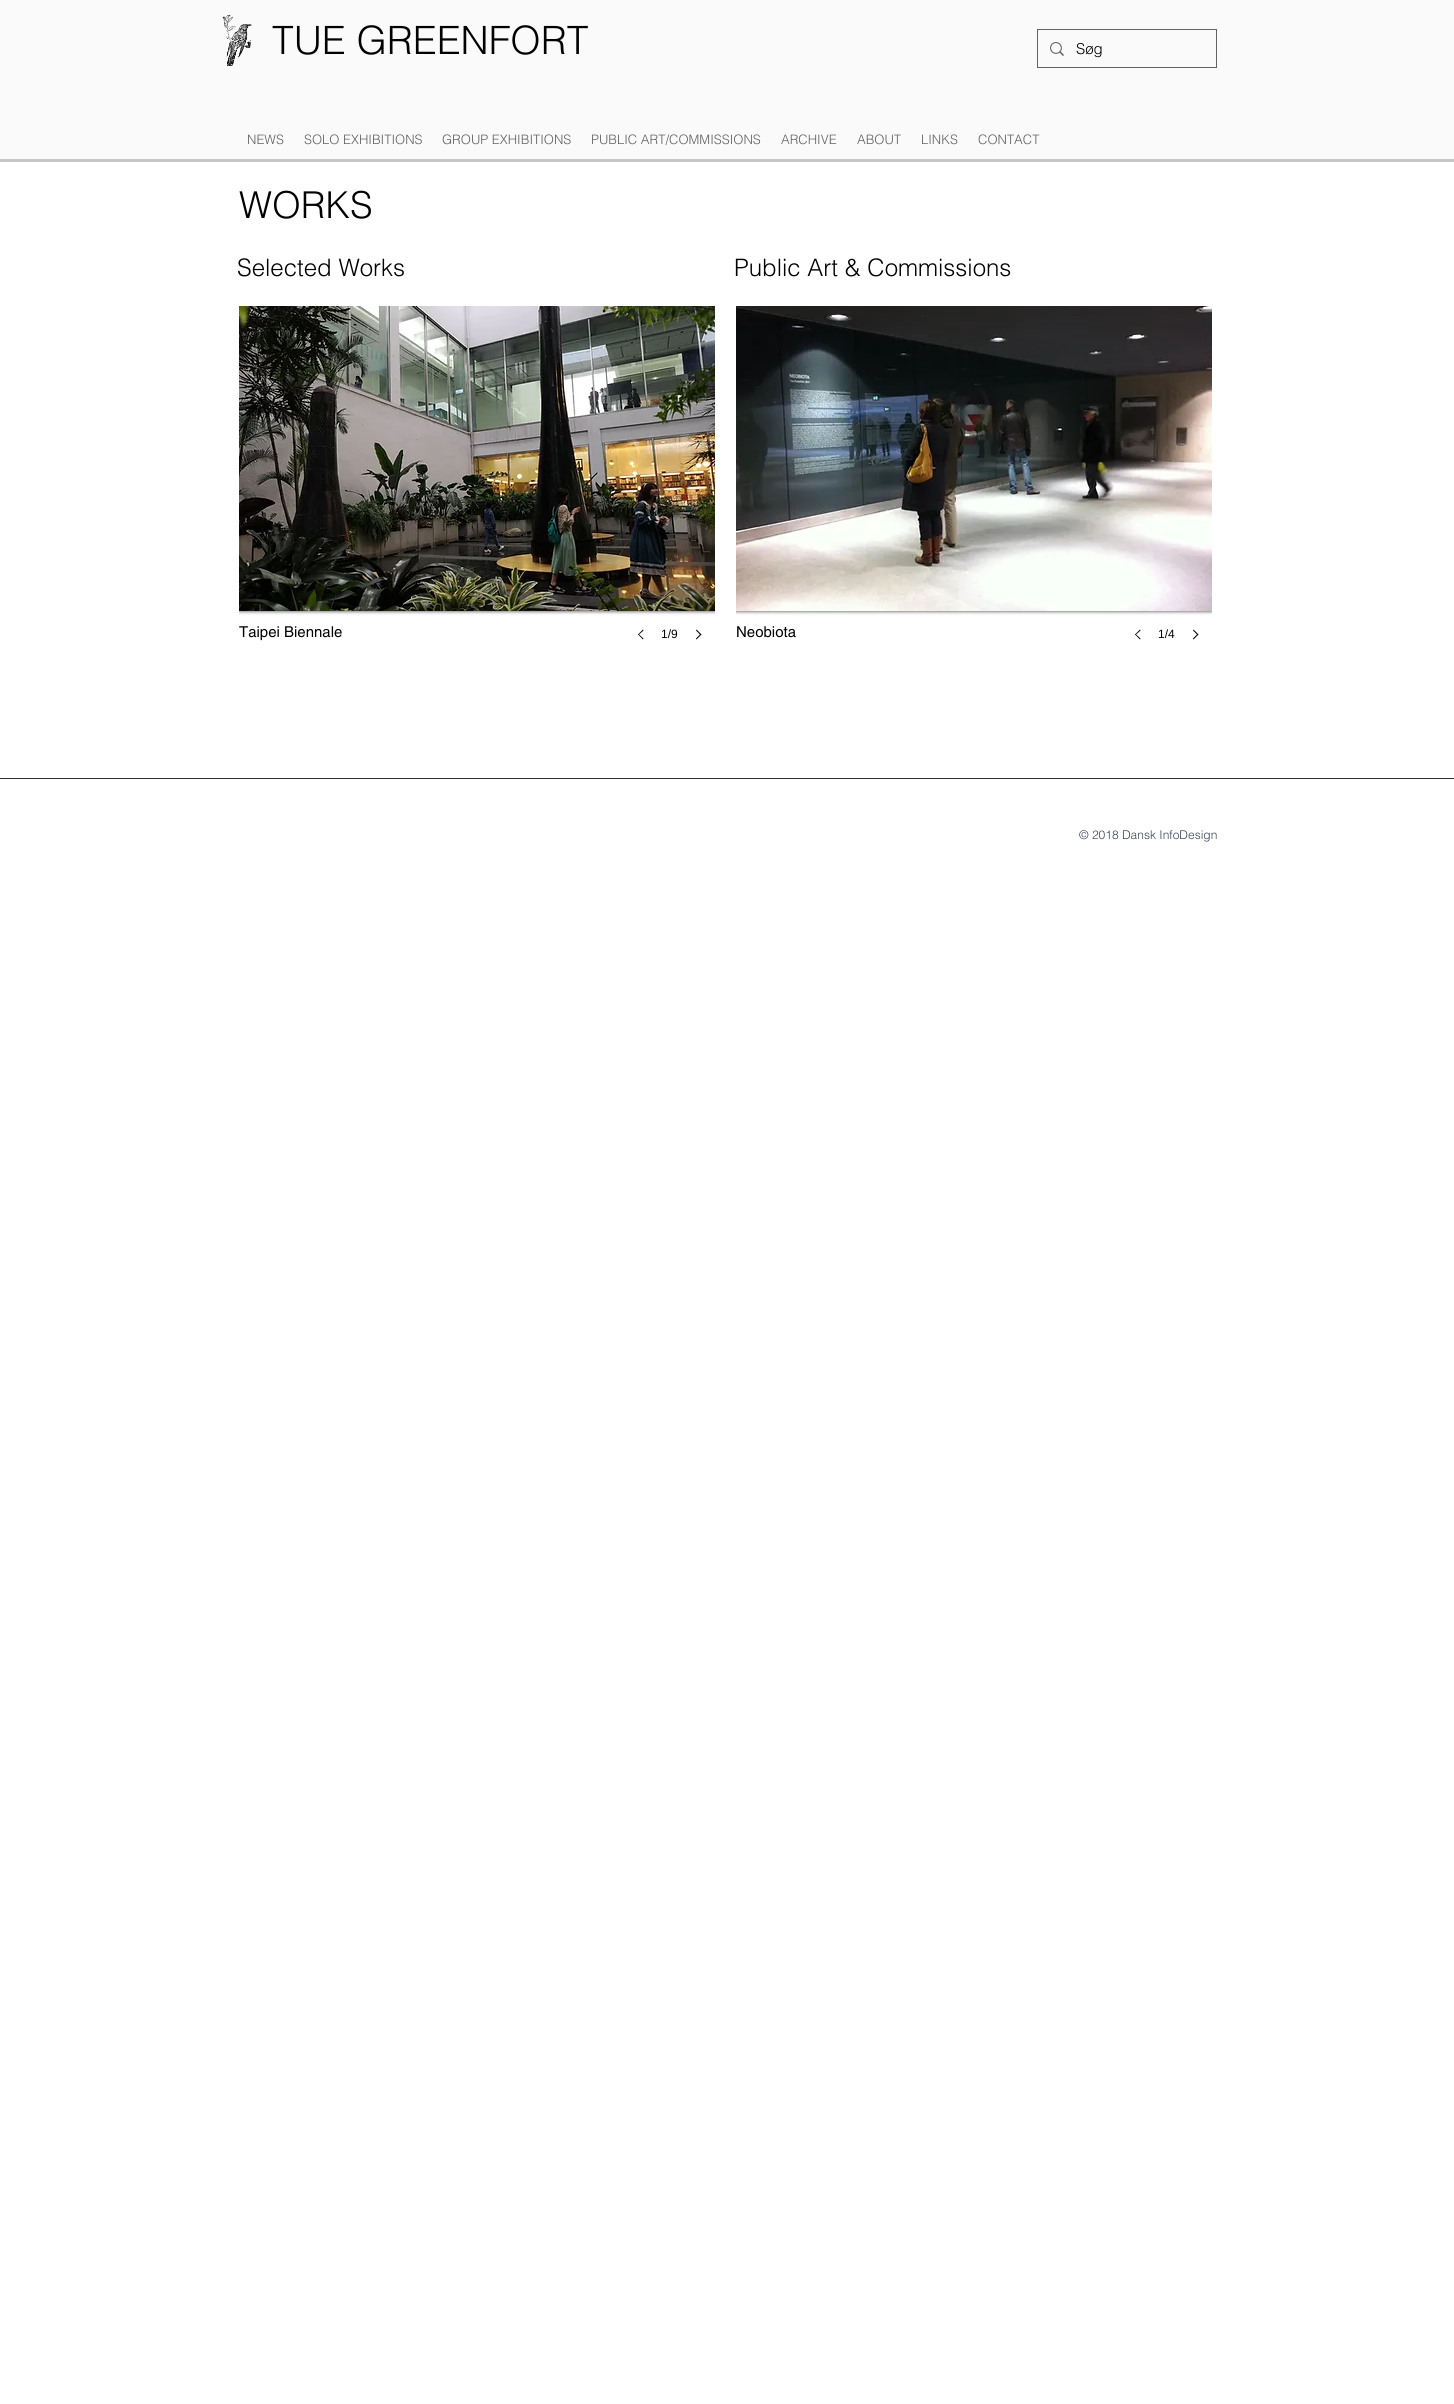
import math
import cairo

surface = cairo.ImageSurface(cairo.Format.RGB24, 1454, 2404)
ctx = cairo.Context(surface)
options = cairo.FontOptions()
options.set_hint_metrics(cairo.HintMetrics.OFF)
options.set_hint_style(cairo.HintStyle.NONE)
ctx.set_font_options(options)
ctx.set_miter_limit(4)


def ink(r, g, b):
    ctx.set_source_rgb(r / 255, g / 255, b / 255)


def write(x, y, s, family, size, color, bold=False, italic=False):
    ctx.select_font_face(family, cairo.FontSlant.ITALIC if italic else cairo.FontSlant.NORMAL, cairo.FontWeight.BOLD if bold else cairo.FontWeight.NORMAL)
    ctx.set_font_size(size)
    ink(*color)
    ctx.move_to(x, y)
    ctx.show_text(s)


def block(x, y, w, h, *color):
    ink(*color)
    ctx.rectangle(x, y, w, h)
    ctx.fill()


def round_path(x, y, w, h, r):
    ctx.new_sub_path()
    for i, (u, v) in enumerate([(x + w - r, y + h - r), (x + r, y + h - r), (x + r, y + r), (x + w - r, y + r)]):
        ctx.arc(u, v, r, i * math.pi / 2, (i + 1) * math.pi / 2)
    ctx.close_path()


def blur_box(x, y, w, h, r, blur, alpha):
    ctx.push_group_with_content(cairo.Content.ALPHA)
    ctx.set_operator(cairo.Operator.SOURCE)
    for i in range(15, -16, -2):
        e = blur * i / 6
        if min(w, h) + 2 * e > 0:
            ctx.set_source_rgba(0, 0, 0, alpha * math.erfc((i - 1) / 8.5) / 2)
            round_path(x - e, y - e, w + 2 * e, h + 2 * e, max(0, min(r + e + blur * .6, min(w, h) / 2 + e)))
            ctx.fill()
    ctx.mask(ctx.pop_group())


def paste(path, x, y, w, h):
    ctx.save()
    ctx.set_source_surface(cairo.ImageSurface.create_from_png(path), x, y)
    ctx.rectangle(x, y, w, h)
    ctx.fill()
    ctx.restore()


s1 = dict(family="helvetica Light", size=39, color=(0, 0, 0))
s2 = dict(family="helvetica Light", size=15, color=(0, 0, 0))
s3 = dict(family="helvetica Light", size=13, color=(97, 97, 96))
s4 = dict(family="helvetica Light", size=37, color=(0, 0, 0))
s5 = dict(family="helvetica Light", size=24, color=(0, 0, 0))
s6 = dict(family="helvetica", size=15, color=(0, 0, 0))
s7 = dict(family="Liberation Sans", size=12, color=(0, 0, 0))
s8 = dict(family="helvetica Light", size=12, color=(50, 65, 88))

ink(255, 255, 255)
ctx.paint()
block(0, 0, 1454, 159, 250, 250, 250)
block(0, 159, 1454, 3, 199, 199, 199)
paste("pic1.png", 222, 15, 30, 51)
write(272, 54, "TUE GREENFORT", **s1)
ctx.rectangle(1037.5, 29.5, 179, 38)
ink(100, 100, 100)
ctx.set_line_width(1)
ctx.stroke()
paste("pic2.png", 1050, 42, 14, 14)
write(1076, 54, "Søg", **s2)
write(247, 144, "NEWS", **s3)
write(304, 144, "SOLO EXHIBITIONS", **s3)
write(442, 144, "GROUP EXHIBITIONS", **s3)
write(591, 144, "PUBLIC ART/COMMISSIONS", **s3)
write(781, 144, "ARCHIVE", **s3)
write(857, 144, "ABOUT", **s3)
write(921, 144, "LINKS", **s3)
write(978, 144, "CONTACT", **s3)
write(239, 218, "WORKS", **s4)
write(237, 276, "Selected Works", **s5)
write(734, 276, "Public Art & Commissions", **s5)
ctx.save()
ctx.rectangle(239, 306, 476, 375)
ctx.clip()
ink(0, 0, 0)
blur_box(239, 307, 476, 305, 0, 1.5, 0.5)
ctx.restore()
paste("pic3.png", 239, 306, 476, 305)
write(239, 637, "Taipei Biennale", **s6)
ctx.new_path()
ctx.move_to(638, 634.5)
ctx.line_to(643, 629.5)
ctx.line_to(643.5, 630.5)
ctx.line_to(638.5, 635)
ctx.close_path()
ctx.fill()
ctx.new_path()
ctx.move_to(638, 634.5)
ctx.line_to(638.5, 634)
ctx.line_to(643.5, 638.5)
ctx.line_to(643, 639.5)
ctx.close_path()
ctx.fill()
write(661, 638, "1/9", **s7)
ctx.new_path()
ctx.move_to(696, 630.5)
ctx.line_to(696.5, 629.5)
ctx.line_to(701.5, 634.5)
ctx.line_to(700.5, 635)
ctx.close_path()
ctx.fill()
ctx.new_path()
ctx.move_to(696, 638.5)
ctx.line_to(700.5, 634)
ctx.line_to(701.5, 634.5)
ctx.line_to(696.5, 639.5)
ctx.close_path()
ctx.fill()
ctx.save()
ctx.rectangle(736, 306, 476, 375)
ctx.clip()
ink(0, 0, 0)
blur_box(736, 307, 476, 305, 0, 1.5, 0.5)
ctx.restore()
paste("pic4.png", 736, 306, 476, 305)
write(736, 637, "Neobiota", **s6)
ctx.new_path()
ctx.move_to(1135, 634.5)
ctx.line_to(1140, 629.5)
ctx.line_to(1140.5, 630.5)
ctx.line_to(1135.5, 635)
ctx.close_path()
ctx.fill()
ctx.new_path()
ctx.move_to(1135, 634.5)
ctx.line_to(1135.5, 634)
ctx.line_to(1140.5, 638.5)
ctx.line_to(1140, 639.5)
ctx.close_path()
ctx.fill()
write(1158, 638, "1/4", **s7)
ctx.new_path()
ctx.move_to(1193, 630.5)
ctx.line_to(1193.5, 629.5)
ctx.line_to(1198.5, 634.5)
ctx.line_to(1197.5, 635)
ctx.close_path()
ctx.fill()
ctx.new_path()
ctx.move_to(1193, 638.5)
ctx.line_to(1197.5, 634)
ctx.line_to(1198.5, 634.5)
ctx.line_to(1193.5, 639.5)
ctx.close_path()
ctx.fill()
block(0, 778, 1454, 1, 47, 46, 46)
write(1079, 839, "© 2018 Dansk InfoDesign", **s8)
surface.write_to_png("screenshot.png")
